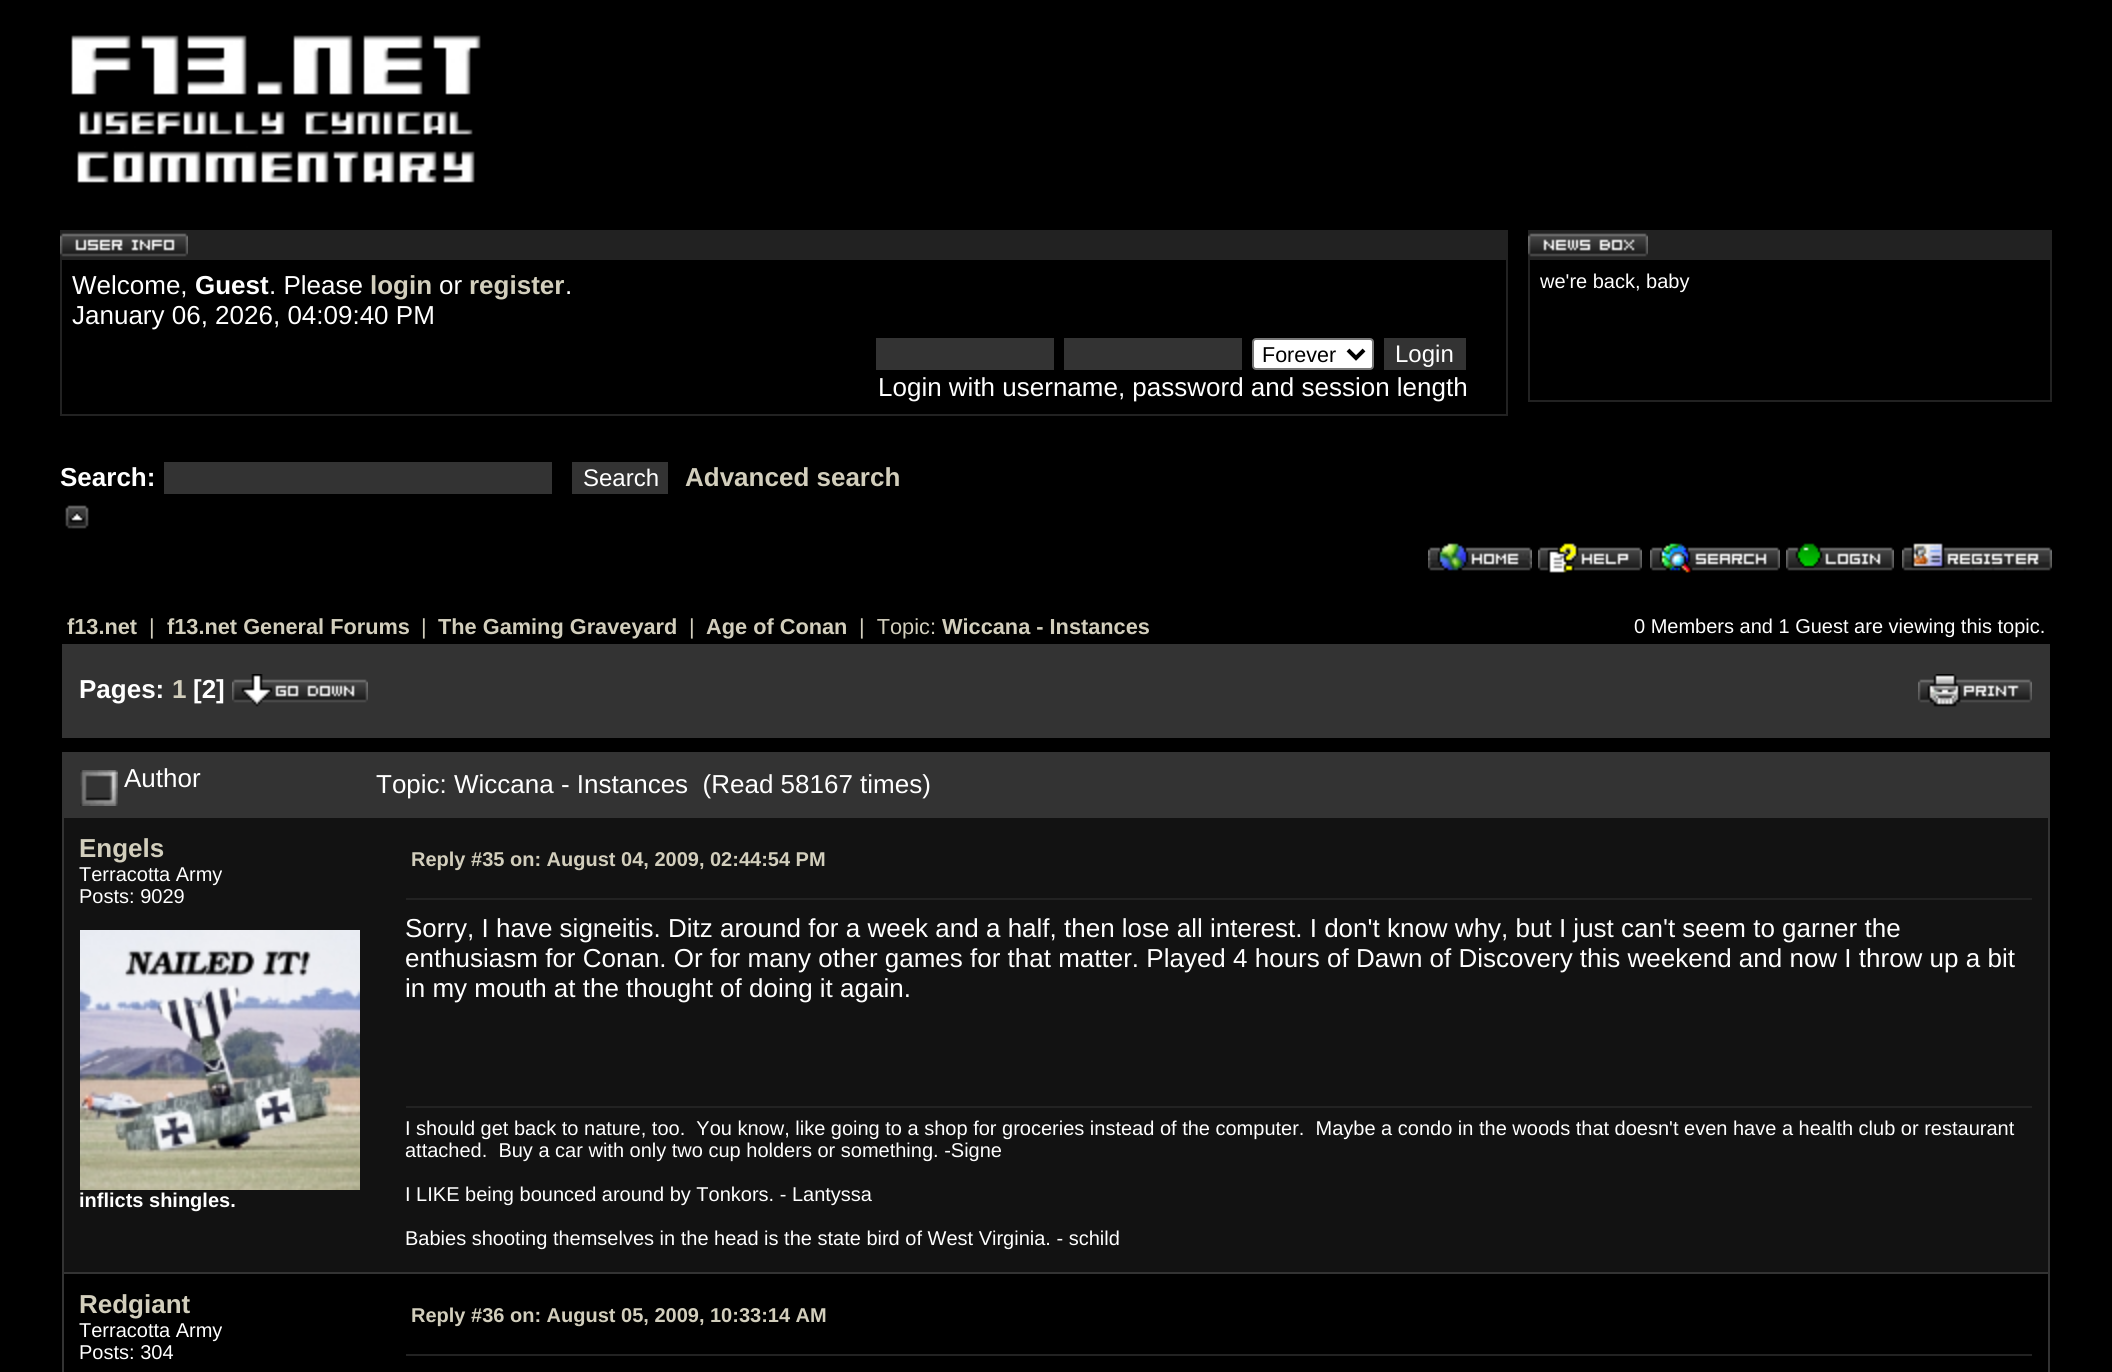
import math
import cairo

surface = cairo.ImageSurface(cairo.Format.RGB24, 2112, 1372)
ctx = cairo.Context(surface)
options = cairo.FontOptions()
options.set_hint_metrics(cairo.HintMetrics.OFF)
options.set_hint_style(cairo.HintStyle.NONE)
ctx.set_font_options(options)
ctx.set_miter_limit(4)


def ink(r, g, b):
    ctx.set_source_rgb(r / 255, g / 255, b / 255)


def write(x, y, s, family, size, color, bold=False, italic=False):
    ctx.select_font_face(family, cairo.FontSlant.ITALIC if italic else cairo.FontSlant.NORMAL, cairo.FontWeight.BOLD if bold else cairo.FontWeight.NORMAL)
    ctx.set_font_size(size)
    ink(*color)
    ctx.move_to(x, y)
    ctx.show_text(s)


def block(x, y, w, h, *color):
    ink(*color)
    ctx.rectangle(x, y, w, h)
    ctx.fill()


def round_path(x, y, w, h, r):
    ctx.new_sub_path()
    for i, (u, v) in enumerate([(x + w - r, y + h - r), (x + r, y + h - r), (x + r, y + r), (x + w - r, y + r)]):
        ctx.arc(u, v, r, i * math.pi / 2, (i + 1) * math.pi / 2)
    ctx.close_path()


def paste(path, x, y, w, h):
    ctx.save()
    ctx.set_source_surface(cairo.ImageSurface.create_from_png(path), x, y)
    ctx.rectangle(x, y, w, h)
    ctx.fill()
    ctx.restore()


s1 = dict(family="Liberation Sans", size=26, color=(255, 255, 255))
s2 = dict(family="Liberation Sans", size=26, color=(255, 255, 255), bold=True)
s3 = dict(family="Liberation Sans", size=26, color=(210, 206, 188), bold=True)
s4 = dict(family="Liberation Sans", size=21.5, color=(0, 0, 0))
s5 = dict(family="Liberation Sans", size=24, color=(255, 255, 255))
s6 = dict(family="Liberation Sans", size=20, color=(255, 255, 255))
s7 = dict(family="Liberation Sans", size=21.75, color=(210, 206, 188), bold=True)
s8 = dict(family="Liberation Sans", size=21.75, color=(210, 206, 188))
s9 = dict(family="Liberation Sans", size=20, color=(255, 255, 255), bold=True)
s10 = dict(family="Liberation Sans", size=20, color=(210, 206, 188), bold=True)

ink(0, 0, 0)
ctx.paint()
paste("pic1.png", 71, 35, 410, 148)
block(60, 230, 1448, 28, 34, 34, 34)
ctx.rectangle(61, 259, 1446, 156)
ctx.stroke()
paste("pic2.png", 60, 233, 128, 24)
write(72, 294, "Welcome,", **s1)
write(195, 294, "Guest", **s2)
write(269, 294, ". Please", **s1)
write(370, 294, "login", **s3)
write(439, 294, "or", **s1)
write(469, 294, "register", **s3)
write(565, 294, ".", **s1)
write(72, 324, "January 06, 2026, 04:09:40 PM", **s1)
block(876, 338, 178, 32, 51, 51, 51)
block(1064, 338, 178, 32, 51, 51, 51)
ink(255, 255, 255)
round_path(1253, 339, 120, 30, 3)
ctx.fill_preserve()
ink(118, 118, 118)
ctx.stroke()
ctx.new_path()
ctx.move_to(1348, 350)
ctx.line_to(1356, 358)
ctx.line_to(1364, 350)
ink(0, 0, 0)
ctx.set_line_width(4)
ctx.stroke()
write(1262, 362, "Forever", **s4)
block(1384, 338, 82, 32, 51, 51, 51)
write(1395, 362, "Login", **s5)
write(878, 396, "Login with username, password and session length", **s1)
write(60, 486, "Search:", **s2)
block(164, 462, 388, 32, 51, 51, 51)
block(572, 462, 96, 32, 51, 51, 51)
write(583, 486, "Search", **s5)
write(685, 486, "Advanced search", **s3)
block(1528, 230, 524, 28, 34, 34, 34)
ctx.rectangle(1529, 259, 522, 142)
ctx.set_line_width(2)
ctx.stroke()
paste("pic3.png", 1528, 233, 120, 24)
write(1540, 288, "we're back, baby", **s6)
paste("pic4.png", 65, 505, 24, 24)
paste("pic5.png", 1428, 543, 104, 28)
paste("pic6.png", 1538, 543, 104, 30)
paste("pic7.png", 1650, 543, 130, 30)
paste("pic8.png", 1786, 543, 108, 28)
paste("pic9.png", 1902, 543, 150, 28)
write(67, 634, "f13.net", **s7)
write(149, 634, "|", **s8)
write(167, 634, "f13.net General Forums", **s7)
write(421, 634, "|", **s8)
write(438, 634, "The Gaming Graveyard", **s7)
write(689, 634, "|", **s8)
write(706, 634, "Age of Conan", **s7)
write(859, 634, "|  Topic:", **s8)
write(942, 634, "Wiccana - Instances", **s7)
write(1634, 633, "0 Members and 1 Guest are viewing this topic.", **s6)
block(62, 644, 1988, 94, 51, 51, 51)
write(79, 698, "Pages:", **s2)
write(172, 698, "1", **s3)
write(193, 698, "[2]", **s2)
paste("pic10.png", 232, 674, 136, 33)
paste("pic11.png", 1918, 674, 114, 33)
block(62, 752, 1988, 620, 51, 51, 51)
paste("pic12.png", 80, 770, 38, 36)
write(124, 787, "Author", **s1)
write(376, 793, "Topic: Wiccana - Instances  (Read 58167 times)", **s1)
block(64, 818, 1984, 454, 18, 18, 18)
write(79, 857, "Engels", **s3)
write(79, 881, "Terracotta Army", **s6)
write(79, 903, "Posts: 9029", **s6)
paste("pic13.png", 80, 930, 280, 260)
write(79, 1207, "inflicts shingles.", **s9)
write(411, 866, "Reply #35 on: August 04, 2009, 02:44:54 PM", **s10)
block(406, 898, 1626, 2, 34, 34, 34)
write(405, 937, "Sorry, I have signeitis. Ditz around for a week and a half, then lose all interest. I don't know why, but I just can't seem to garner the", **s1)
write(405, 967, "enthusiasm for Conan. Or for many other games for that matter. Played 4 hours of Dawn of Discovery this weekend and now I throw up a bit", **s1)
write(405, 997, "in my mouth at the thought of doing it again.", **s1)
block(406, 1106, 1626, 2, 34, 34, 34)
write(405, 1135, "I should get back to nature, too.  You know, like going to a shop for groceries instead of the computer.  Maybe a condo in the woods that doesn't even have a health club or restaurant", **s6)
write(405, 1157, "attached.  Buy a car with only two cup holders or something. -Signe", **s6)
write(405, 1201, "I LIKE being bounced around by Tonkors. - Lantyssa", **s6)
write(405, 1245, "Babies shooting themselves in the head is the state bird of West Virginia. - schild", **s6)
block(64, 1274, 1984, 98, 0, 0, 0)
write(79, 1313, "Redgiant", **s3)
write(79, 1337, "Terracotta Army", **s6)
write(79, 1359, "Posts: 304", **s6)
write(411, 1322, "Reply #36 on: August 05, 2009, 10:33:14 AM", **s10)
block(406, 1354, 1626, 2, 34, 34, 34)
surface.write_to_png("screenshot.png")
